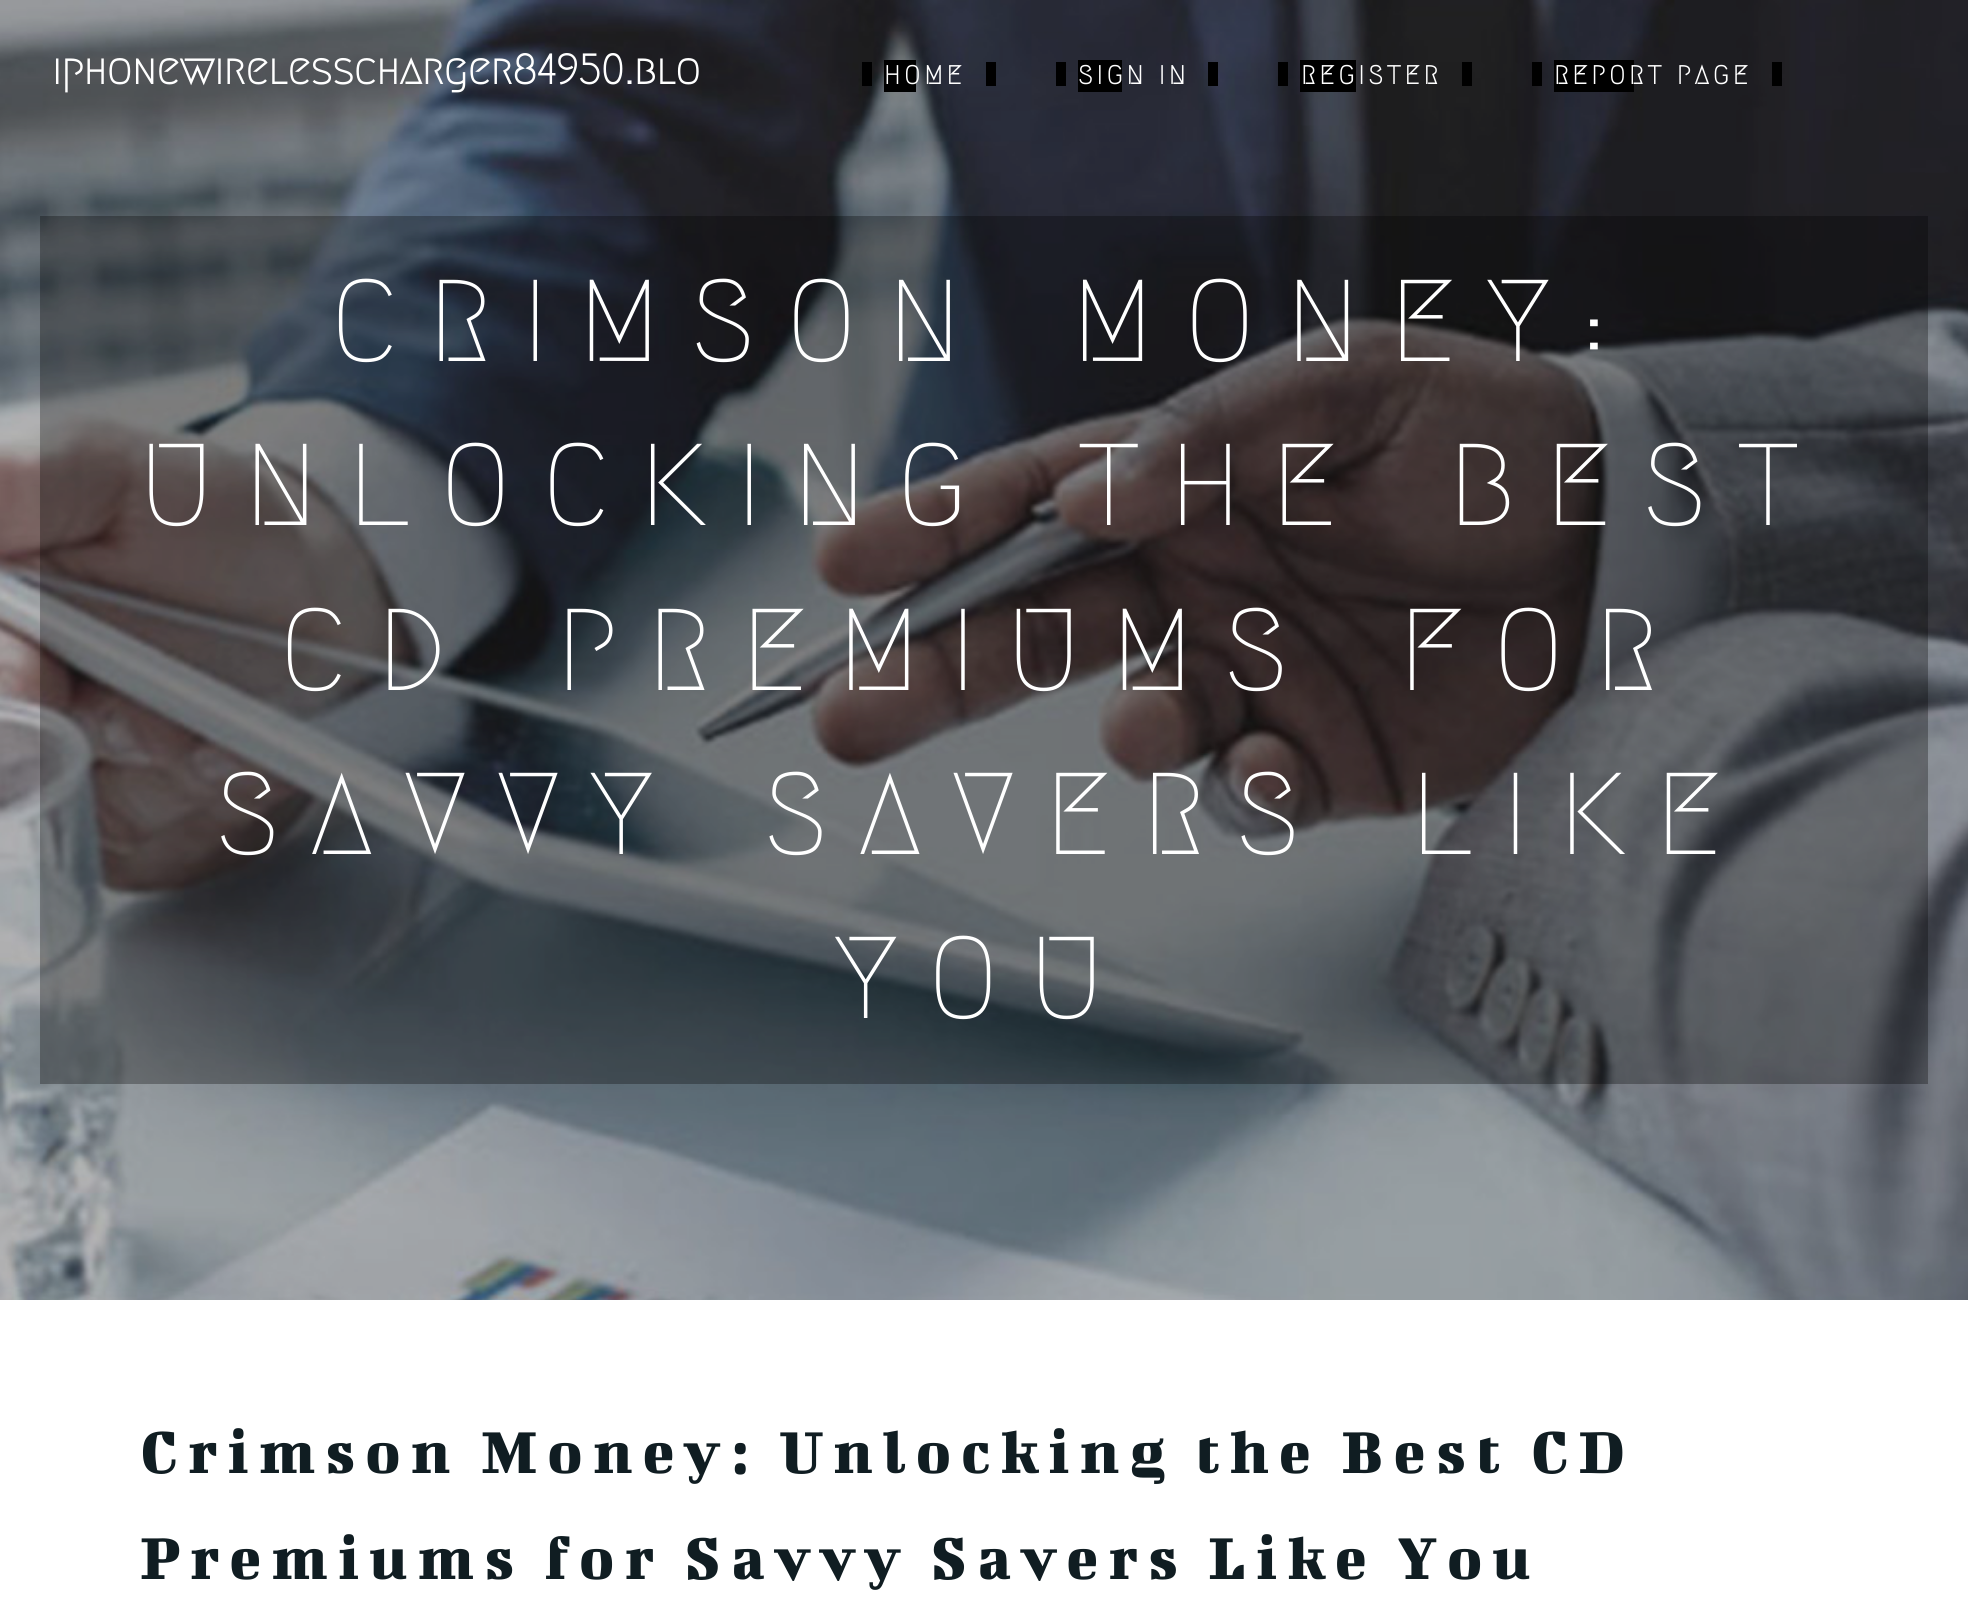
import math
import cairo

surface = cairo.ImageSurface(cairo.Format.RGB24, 1968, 1623)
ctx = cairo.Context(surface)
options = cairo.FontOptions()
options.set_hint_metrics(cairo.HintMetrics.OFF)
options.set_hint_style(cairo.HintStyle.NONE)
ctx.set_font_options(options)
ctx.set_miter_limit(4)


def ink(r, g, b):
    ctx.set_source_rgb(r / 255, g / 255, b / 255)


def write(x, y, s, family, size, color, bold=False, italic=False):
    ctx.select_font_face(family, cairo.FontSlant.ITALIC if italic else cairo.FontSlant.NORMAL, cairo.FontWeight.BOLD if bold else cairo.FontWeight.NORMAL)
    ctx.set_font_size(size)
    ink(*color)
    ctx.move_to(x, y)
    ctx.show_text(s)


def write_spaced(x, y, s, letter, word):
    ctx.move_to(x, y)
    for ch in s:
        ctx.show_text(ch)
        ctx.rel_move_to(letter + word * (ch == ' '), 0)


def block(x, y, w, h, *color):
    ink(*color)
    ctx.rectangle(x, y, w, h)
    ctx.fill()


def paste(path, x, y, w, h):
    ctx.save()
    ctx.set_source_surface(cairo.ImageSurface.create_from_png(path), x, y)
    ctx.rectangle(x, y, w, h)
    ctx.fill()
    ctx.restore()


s1 = dict(family="Megrim", size=42, color=(255, 255, 255), bold=True)

ink(255, 255, 255)
ctx.paint()
paste("pic1.png", 0, 0, 1968, 1300)
write(52, 84, "iphonewirelesscharger84950.blo", **s1)
block(884, 60, 32, 32, 0, 0, 0)
ctx.set_font_size(26)
ink(255, 255, 255)
write_spaced(884, 84, "HOME", 4, 0)
block(862, 62, 10, 24, 0, 0, 0)
block(986, 62, 10, 24, 0, 0, 0)
block(1078, 60, 44, 32, 0, 0, 0)
ink(255, 255, 255)
write_spaced(1078, 84, "SIGN IN", 4, 0)
block(1056, 62, 10, 24, 0, 0, 0)
block(1208, 62, 10, 24, 0, 0, 0)
block(1300, 60, 56, 32, 0, 0, 0)
ink(255, 255, 255)
write_spaced(1301, 84, "REGISTER", 4, 0)
block(1278, 62, 10, 24, 0, 0, 0)
block(1462, 62, 10, 24, 0, 0, 0)
block(1554, 60, 80, 32, 0, 0, 0)
ink(255, 255, 255)
write_spaced(1554, 84, "REPORT PAGE", 4, 0)
block(1532, 62, 10, 24, 0, 0, 0)
block(1772, 62, 10, 24, 0, 0, 0)
ctx.set_source_rgba(0, 0, 0, 0.3)
ctx.rectangle(40, 216, 1888, 868)
ctx.fill()
ctx.select_font_face("Megrim Medium")
ctx.set_font_size(116)
ink(255, 255, 255)
write_spaced(330, 361, "CRIMSON MONEY:", 30, 16)
write_spaced(139, 525, "UNLOCKING THE BEST", 30, 16)
write_spaced(279, 690, "CD PREMIUMS FOR", 30, 16)
write_spaced(215, 854, "SAVVY SAVERS LIKE", 30, 16)
write_spaced(834, 1018, "YOU", 30, 0)
ctx.select_font_face("Bigshot One")
ctx.set_font_size(66)
ink(16, 29, 34)
write_spaced(140, 1473, "Crimson Money: Unlocking the Best CD", 10, 0)
write_spaced(140, 1579, "Premiums for Savvy Savers Like You", 10, 0)
surface.write_to_png("screenshot.png")
